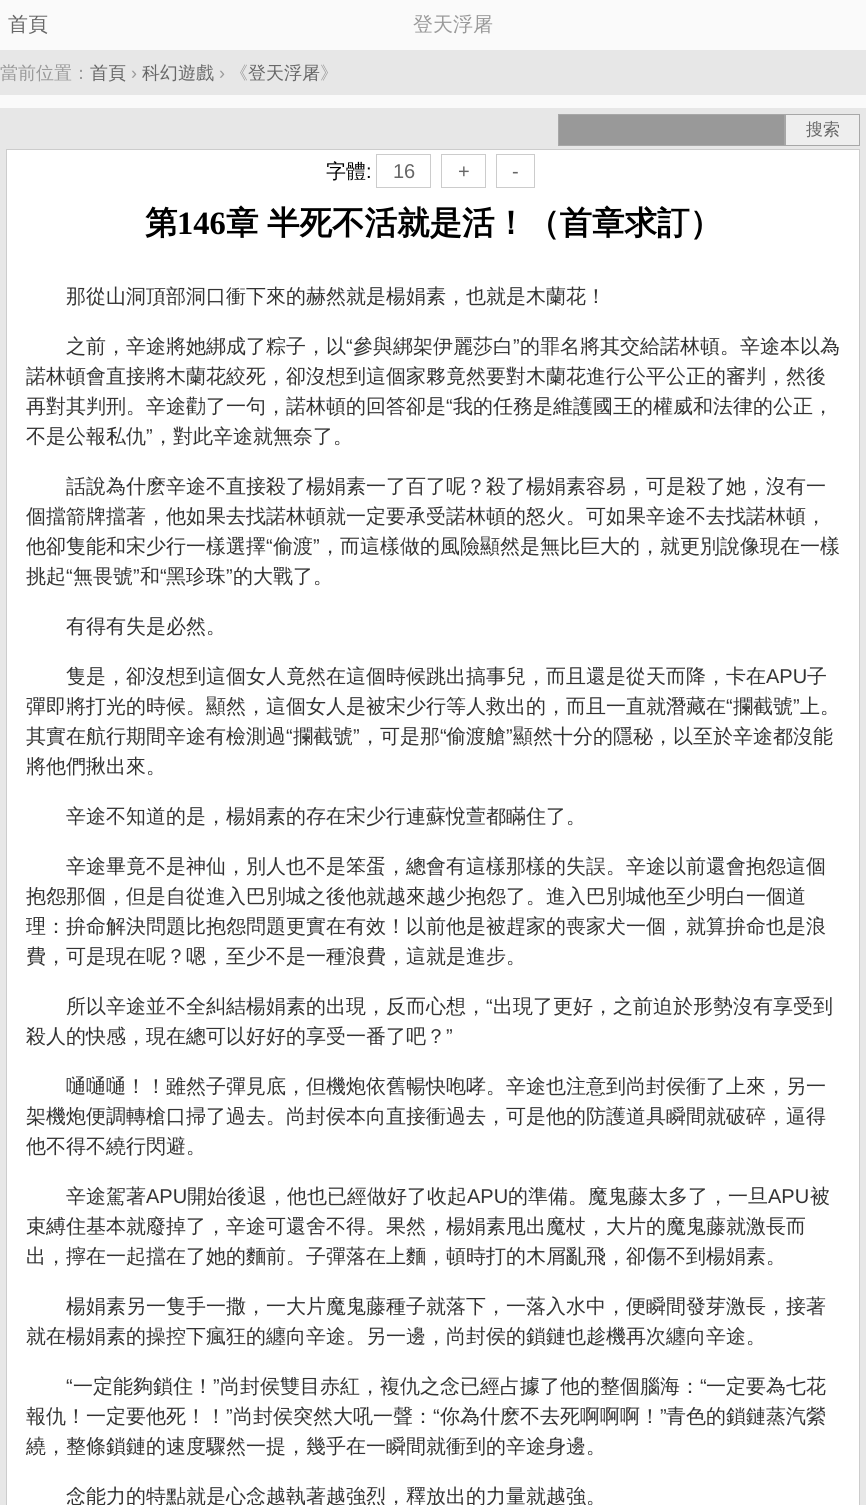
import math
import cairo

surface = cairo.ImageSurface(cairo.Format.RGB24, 866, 1505)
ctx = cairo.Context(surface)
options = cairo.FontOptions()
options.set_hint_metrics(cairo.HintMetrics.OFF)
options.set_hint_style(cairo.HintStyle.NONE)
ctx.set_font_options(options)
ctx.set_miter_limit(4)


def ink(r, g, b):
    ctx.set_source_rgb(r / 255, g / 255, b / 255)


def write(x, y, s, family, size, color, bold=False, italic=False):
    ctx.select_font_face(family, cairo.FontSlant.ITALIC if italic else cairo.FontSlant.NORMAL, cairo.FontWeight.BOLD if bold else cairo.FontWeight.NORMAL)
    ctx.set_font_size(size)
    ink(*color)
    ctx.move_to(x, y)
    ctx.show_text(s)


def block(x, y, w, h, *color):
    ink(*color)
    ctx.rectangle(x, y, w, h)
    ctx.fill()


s1 = dict(family="WenQuanYi Zen Hei Medium", size=20, color=(102, 102, 102))
s2 = dict(family="WenQuanYi Zen Hei Medium", size=20, color=(153, 153, 153))
s3 = dict(family="WenQuanYi Zen Hei Medium", size=18, color=(153, 153, 153))
s4 = dict(family="WenQuanYi Zen Hei Medium", size=18, color=(102, 102, 102))
s5 = dict(family="Liberation Sans", size=18, color=(153, 153, 153))
s6 = dict(family="WenQuanYi Zen Hei Medium", size=17, color=(102, 102, 102))
s7 = dict(family="WenQuanYi Zen Hei Medium", size=20, color=(0, 0, 0))
s8 = dict(family="Liberation Sans", size=20, color=(0, 0, 0))
s9 = dict(family="Liberation Sans", size=20, color=(102, 102, 102))
s10 = dict(family="WenQuanYi Zen Hei", size=32.5, color=(0, 0, 0), bold=True)
s11 = dict(family="Liberation Serif", size=32.5, color=(0, 0, 0), bold=True)
s12 = dict(family="WenQuanYi Zen Hei Medium", size=20, color=(51, 51, 51))
s13 = dict(family="Liberation Sans", size=20, color=(51, 51, 51))

ink(250, 250, 250)
ctx.paint()
write(8, 31, "首頁", **s1)
write(413, 31, "登天浮屠", **s2)
block(0, 50, 866, 45, 231, 231, 231)
write(0, 79, "當前位置：", **s3)
write(90, 79, "首頁", **s4)
write(131, 79, "›", **s5)
write(142, 79, "科幻遊戲", **s4)
write(219, 79, "›", **s5)
write(230, 79, "《", **s3)
write(248, 79, "登天浮屠", **s4)
write(320, 79, "》", **s3)
block(0, 108, 866, 1397, 231, 231, 231)
ink(153, 153, 153)
ctx.rectangle(558.5, 114.5, 226, 31)
ctx.fill_preserve()
ink(167, 167, 167)
ctx.set_line_width(1)
ctx.stroke()
ink(238, 238, 238)
ctx.rectangle(785.5, 114.5, 74, 31)
ctx.fill_preserve()
ink(167, 167, 167)
ctx.stroke()
write(806, 135, "搜索", **s6)
ink(255, 255, 255)
ctx.rectangle(6.5, 149.5, 853, 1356)
ctx.fill_preserve()
ink(204, 204, 204)
ctx.stroke()
write(326, 178, "字體", **s7)
write(366, 178, ":", **s8)
ctx.rectangle(376.5, 154.5, 54, 33)
ink(204, 204, 204)
ctx.stroke()
write(393, 178, "16", **s9)
ctx.rectangle(441.5, 154.5, 44, 33)
ink(204, 204, 204)
ctx.stroke()
write(458, 178, "+", **s9)
ctx.rectangle(496.5, 154.5, 38, 33)
ink(204, 204, 204)
ctx.stroke()
write(512, 178, "-", **s9)
write(145, 234, "第", **s10)
write(177, 234, "146", **s11)
write(226, 234, "章", **s10)
write(267, 234, "半死不活就是活！（首章求訂）", **s10)
write(66, 303, "那從山洞頂部洞口衝下來的赫然就是楊娟素，也就是木蘭花！", **s12)
write(66, 353, "之前，辛途將她綁成了粽子，以", **s12)
write(346, 353, "“", **s13)
write(353, 353, "參與綁架伊麗莎白", **s12)
write(513, 353, "”", **s13)
write(520, 353, "的罪名將其交給諾林頓。辛途本以為", **s12)
write(26, 383, "諾林頓會直接將木蘭花絞死，卻沒想到這個家夥竟然要對木蘭花進行公平公正的審判，然後", **s12)
write(26, 413, "再對其判刑。辛途勸了一句，諾林頓的回答卻是", **s12)
write(446, 413, "“", **s13)
write(453, 413, "我的任務是維護國王的權威和法律的公正，", **s12)
write(26, 443, "不是公報私仇", **s12)
write(146, 443, "”", **s13)
write(153, 443, "，對此辛途就無奈了。", **s12)
write(66, 493, "話說為什麽辛途不直接殺了楊娟素一了百了呢？殺了楊娟素容易，可是殺了她，沒有一", **s12)
write(26, 523, "個擋箭牌擋著，他如果去找諾林頓就一定要承受諾林頓的怒火。可如果辛途不去找諾林頓，", **s12)
write(26, 553, "他卻隻能和宋少行一樣選擇", **s12)
write(266, 553, "“", **s13)
write(273, 553, "偷渡", **s12)
write(313, 553, "”", **s13)
write(320, 553, "，而這樣做的風險顯然是無比巨大的，就更別說像現在一樣", **s12)
write(26, 583, "挑起", **s12)
write(66, 583, "“", **s13)
write(73, 583, "無畏號", **s12)
write(133, 583, "”", **s13)
write(140, 583, "和", **s12)
write(160, 583, "“", **s13)
write(166, 583, "黑珍珠", **s12)
write(226, 583, "”", **s13)
write(233, 583, "的大戰了。", **s12)
write(66, 633, "有得有失是必然。", **s12)
write(66, 683, "隻是，卻沒想到這個女人竟然在這個時候跳出搞事兒，而且還是從天而降，卡在", **s12)
write(766, 683, "APU", **s13)
write(807, 683, "子", **s12)
write(26, 713, "彈即將打光的時候。顯然，這個女人是被宋少行等人救出的，而且一直就潛藏在", **s12)
write(726, 713, "“", **s13)
write(733, 713, "攔截號", **s12)
write(793, 713, "”", **s13)
write(800, 713, "上。", **s12)
write(26, 743, "其實在航行期間辛途有檢測過", **s12)
write(286, 743, "“", **s13)
write(293, 743, "攔截號", **s12)
write(353, 743, "”", **s13)
write(360, 743, "，可是那", **s12)
write(440, 743, "“", **s13)
write(446, 743, "偷渡艙", **s12)
write(506, 743, "”", **s13)
write(513, 743, "顯然十分的隱秘，以至於辛途都沒能", **s12)
write(26, 773, "將他們揪出來。", **s12)
write(66, 823, "辛途不知道的是，楊娟素的存在宋少行連蘇悅萱都瞞住了。", **s12)
write(66, 873, "辛途畢竟不是神仙，別人也不是笨蛋，總會有這樣那樣的失誤。辛途以前還會抱怨這個", **s12)
write(26, 903, "抱怨那個，但是自從進入巴別城之後他就越來越少抱怨了。進入巴別城他至少明白一個道", **s12)
write(26, 933, "理：拚命解決問題比抱怨問題更實在有效！以前他是被趕家的喪家犬一個，就算拚命也是浪", **s12)
write(26, 963, "費，可是現在呢？嗯，至少不是一種浪費，這就是進步。", **s12)
write(66, 1013, "所以辛途並不全糾結楊娟素的出現，反而心想，", **s12)
write(486, 1013, "“", **s13)
write(493, 1013, "出現了更好，之前迫於形勢沒有享受到", **s12)
write(26, 1043, "殺人的快感，現在總可以好好的享受一番了吧？", **s12)
write(446, 1043, "”", **s13)
write(66, 1093, "嗵嗵嗵！！雖然子彈見底，但機炮依舊暢快咆哮。辛途也注意到尚封侯衝了上來，另一", **s12)
write(26, 1123, "架機炮便調轉槍口掃了過去。尚封侯本向直接衝過去，可是他的防護道具瞬間就破碎，逼得", **s12)
write(26, 1153, "他不得不繞行閃避。", **s12)
write(66, 1203, "辛途駕著", **s12)
write(146, 1203, "APU", **s13)
write(187, 1203, "開始後退，他也已經做好了收起", **s12)
write(467, 1203, "APU", **s13)
write(508, 1203, "的準備。魔鬼藤太多了，一旦", **s12)
write(768, 1203, "APU", **s13)
write(810, 1203, "被", **s12)
write(26, 1233, "束縛住基本就廢掉了，辛途可還舍不得。果然，楊娟素甩出魔杖，大片的魔鬼藤就激長而", **s12)
write(26, 1263, "出，擰在一起擋在了她的麵前。子彈落在上麵，頓時打的木屑亂飛，卻傷不到楊娟素。", **s12)
write(66, 1313, "楊娟素另一隻手一撒，一大片魔鬼藤種子就落下，一落入水中，便瞬間發芽激長，接著", **s12)
write(26, 1343, "就在楊娟素的操控下瘋狂的纏向辛途。另一邊，尚封侯的鎖鏈也趁機再次纏向辛途。", **s12)
write(66, 1393, "“", **s13)
write(73, 1393, "一定能夠鎖住！", **s12)
write(213, 1393, "”", **s13)
write(220, 1393, "尚封侯雙目赤紅，複仇之念已經占據了他的整個腦海：", **s12)
write(700, 1393, "“", **s13)
write(706, 1393, "一定要為七花", **s12)
write(26, 1423, "報仇！一定要他死！！", **s12)
write(226, 1423, "”", **s13)
write(233, 1423, "尚封侯突然大吼一聲：", **s12)
write(433, 1423, "“", **s13)
write(440, 1423, "你為什麽不去死啊啊啊！", **s12)
write(660, 1423, "”", **s13)
write(666, 1423, "青色的鎖鏈蒸汽縈", **s12)
write(26, 1453, "繞，整條鎖鏈的速度驟然一提，幾乎在一瞬間就衝到的辛途身邊。", **s12)
write(66, 1503, "念能力的特點就是心念越執著越強烈，釋放出的力量就越強。", **s12)
surface.write_to_png("screenshot.png")
